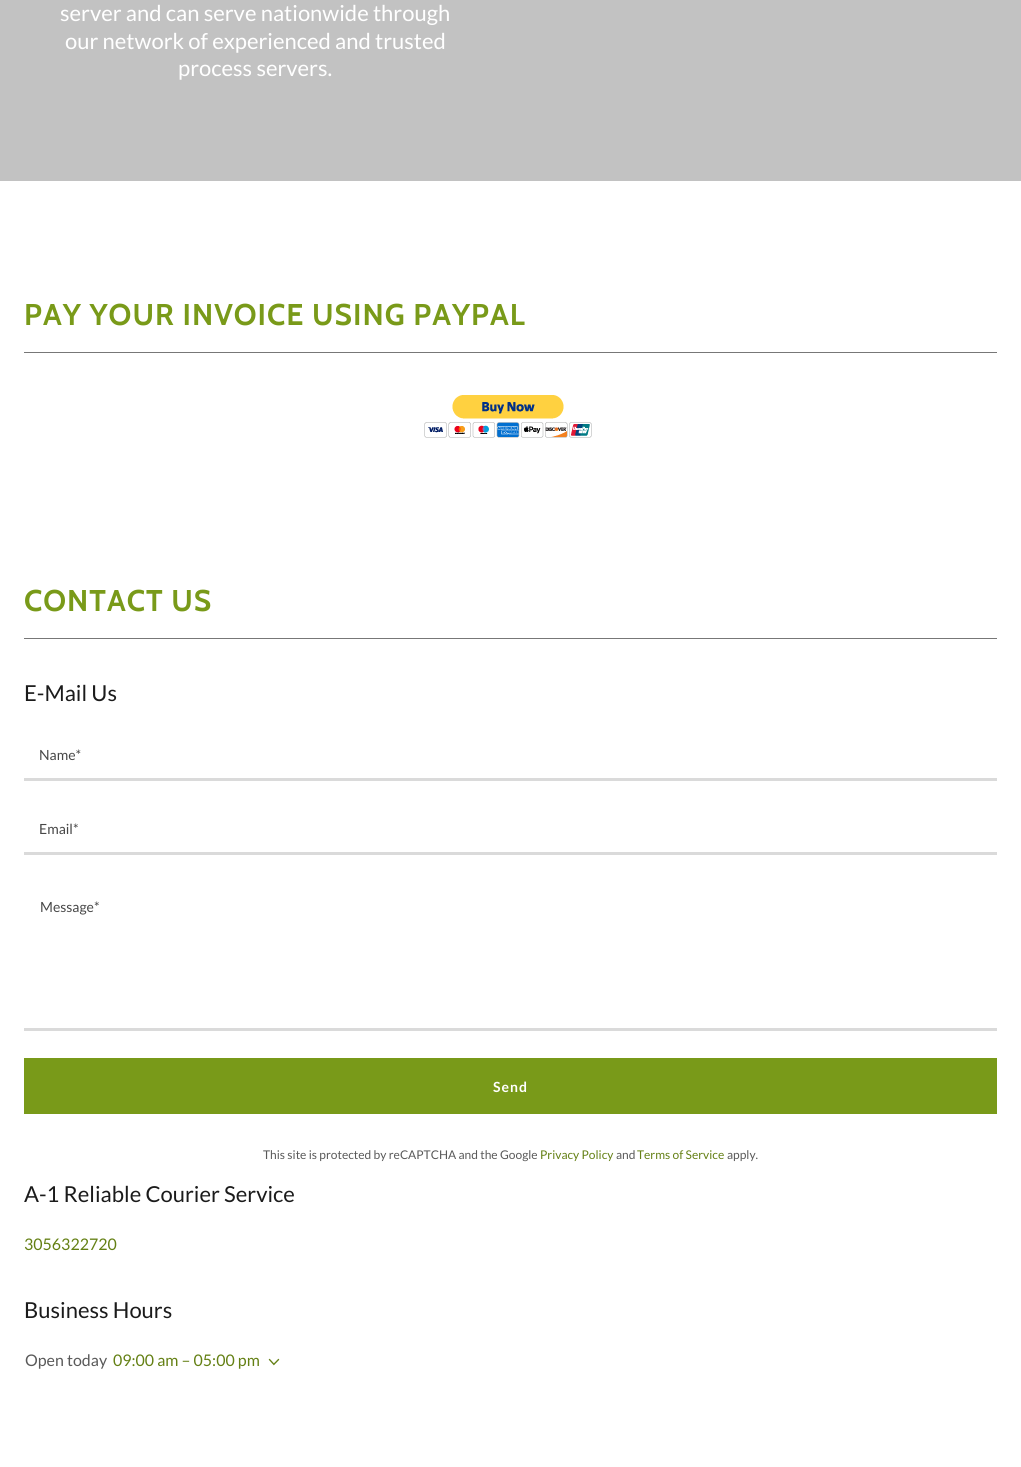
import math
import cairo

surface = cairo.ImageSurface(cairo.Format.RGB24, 1021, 1467)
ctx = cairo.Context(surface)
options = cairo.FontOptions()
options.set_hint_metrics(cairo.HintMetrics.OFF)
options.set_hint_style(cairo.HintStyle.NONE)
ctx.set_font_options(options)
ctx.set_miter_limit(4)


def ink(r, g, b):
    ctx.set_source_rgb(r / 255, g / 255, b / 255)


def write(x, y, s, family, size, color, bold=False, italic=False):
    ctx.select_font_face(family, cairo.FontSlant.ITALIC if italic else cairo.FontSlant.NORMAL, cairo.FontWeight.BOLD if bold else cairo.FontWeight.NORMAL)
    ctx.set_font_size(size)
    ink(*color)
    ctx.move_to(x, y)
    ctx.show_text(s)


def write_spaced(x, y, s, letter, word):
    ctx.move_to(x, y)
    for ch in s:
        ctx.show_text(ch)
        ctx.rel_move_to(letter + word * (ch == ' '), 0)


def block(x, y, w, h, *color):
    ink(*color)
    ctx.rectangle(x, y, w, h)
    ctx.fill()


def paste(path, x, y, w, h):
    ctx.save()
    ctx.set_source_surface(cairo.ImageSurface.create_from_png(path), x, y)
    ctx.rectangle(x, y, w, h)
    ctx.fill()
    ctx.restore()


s1 = dict(family="Lato", size=22, color=(255, 255, 255))
s2 = dict(family="Lato", size=22, color=(27, 27, 27))
s3 = dict(family="Lato", size=14, color=(71, 71, 71))
s4 = dict(family="Lato", size=12, color=(89, 89, 89))
s5 = dict(family="Lato", size=12, color=(100, 128, 20))
s6 = dict(family="Lato", size=16, color=(100, 128, 20))
s7 = dict(family="Lato", size=16, color=(89, 89, 89))

ink(255, 255, 255)
ctx.paint()
block(0, 0, 1021, 181, 194, 194, 194)
write(60, 21, "server and can serve nationwide through", **s1)
write(65, 49, "our network of experienced and trusted", **s1)
write(178, 76, "process servers.", **s1)
ctx.select_font_face("Cabin", cairo.FontSlant.NORMAL, cairo.FontWeight.BOLD)
ctx.set_font_size(30)
ink(121, 154, 25)
write_spaced(24, 325, "PAY YOUR INVOICE USING PAYPAL", 1, 0)
block(24, 352, 973, 1, 119, 119, 119)
paste("pic1.png", 424, 395, 168, 43)
ink(121, 154, 25)
write_spaced(24, 611, "CONTACT US", 1, 0)
block(24, 638, 973, 1, 119, 119, 119)
write(24, 701, "E-Mail Us", **s2)
write(39, 760, "Name*", **s3)
block(24, 778, 973, 3, 218, 218, 218)
write(39, 834, "Email*", **s3)
block(24, 852, 973, 3, 218, 218, 218)
block(24, 1028, 973, 3, 218, 218, 218)
write(40, 912, "Message*", **s3)
block(24, 1058, 973, 56, 121, 154, 25)
ctx.select_font_face("Lato", cairo.FontSlant.NORMAL, cairo.FontWeight.BOLD)
ink(255, 255, 255)
write_spaced(493, 1092, "Send", 1, 0)
write(263, 1159, "This site is protected by reCAPTCHA and the Google", **s4)
write(540, 1159, "Privacy Policy", **s5)
write(616, 1159, "and", **s4)
write(637, 1159, "Terms of Service", **s5)
write(727, 1159, "apply.", **s4)
write(24, 1202, "A-1 Reliable Courier Service", **s2)
write(24, 1250, "3056322720", **s6)
write(24, 1318, "Business Hours", **s2)
write(25, 1366, "Open today", **s7)
write(113, 1366, "09:00 am – 05:00 pm", **s6)
paste("pic2.png", 268, 1358, 12, 8)
surface.write_to_png("screenshot.png")
